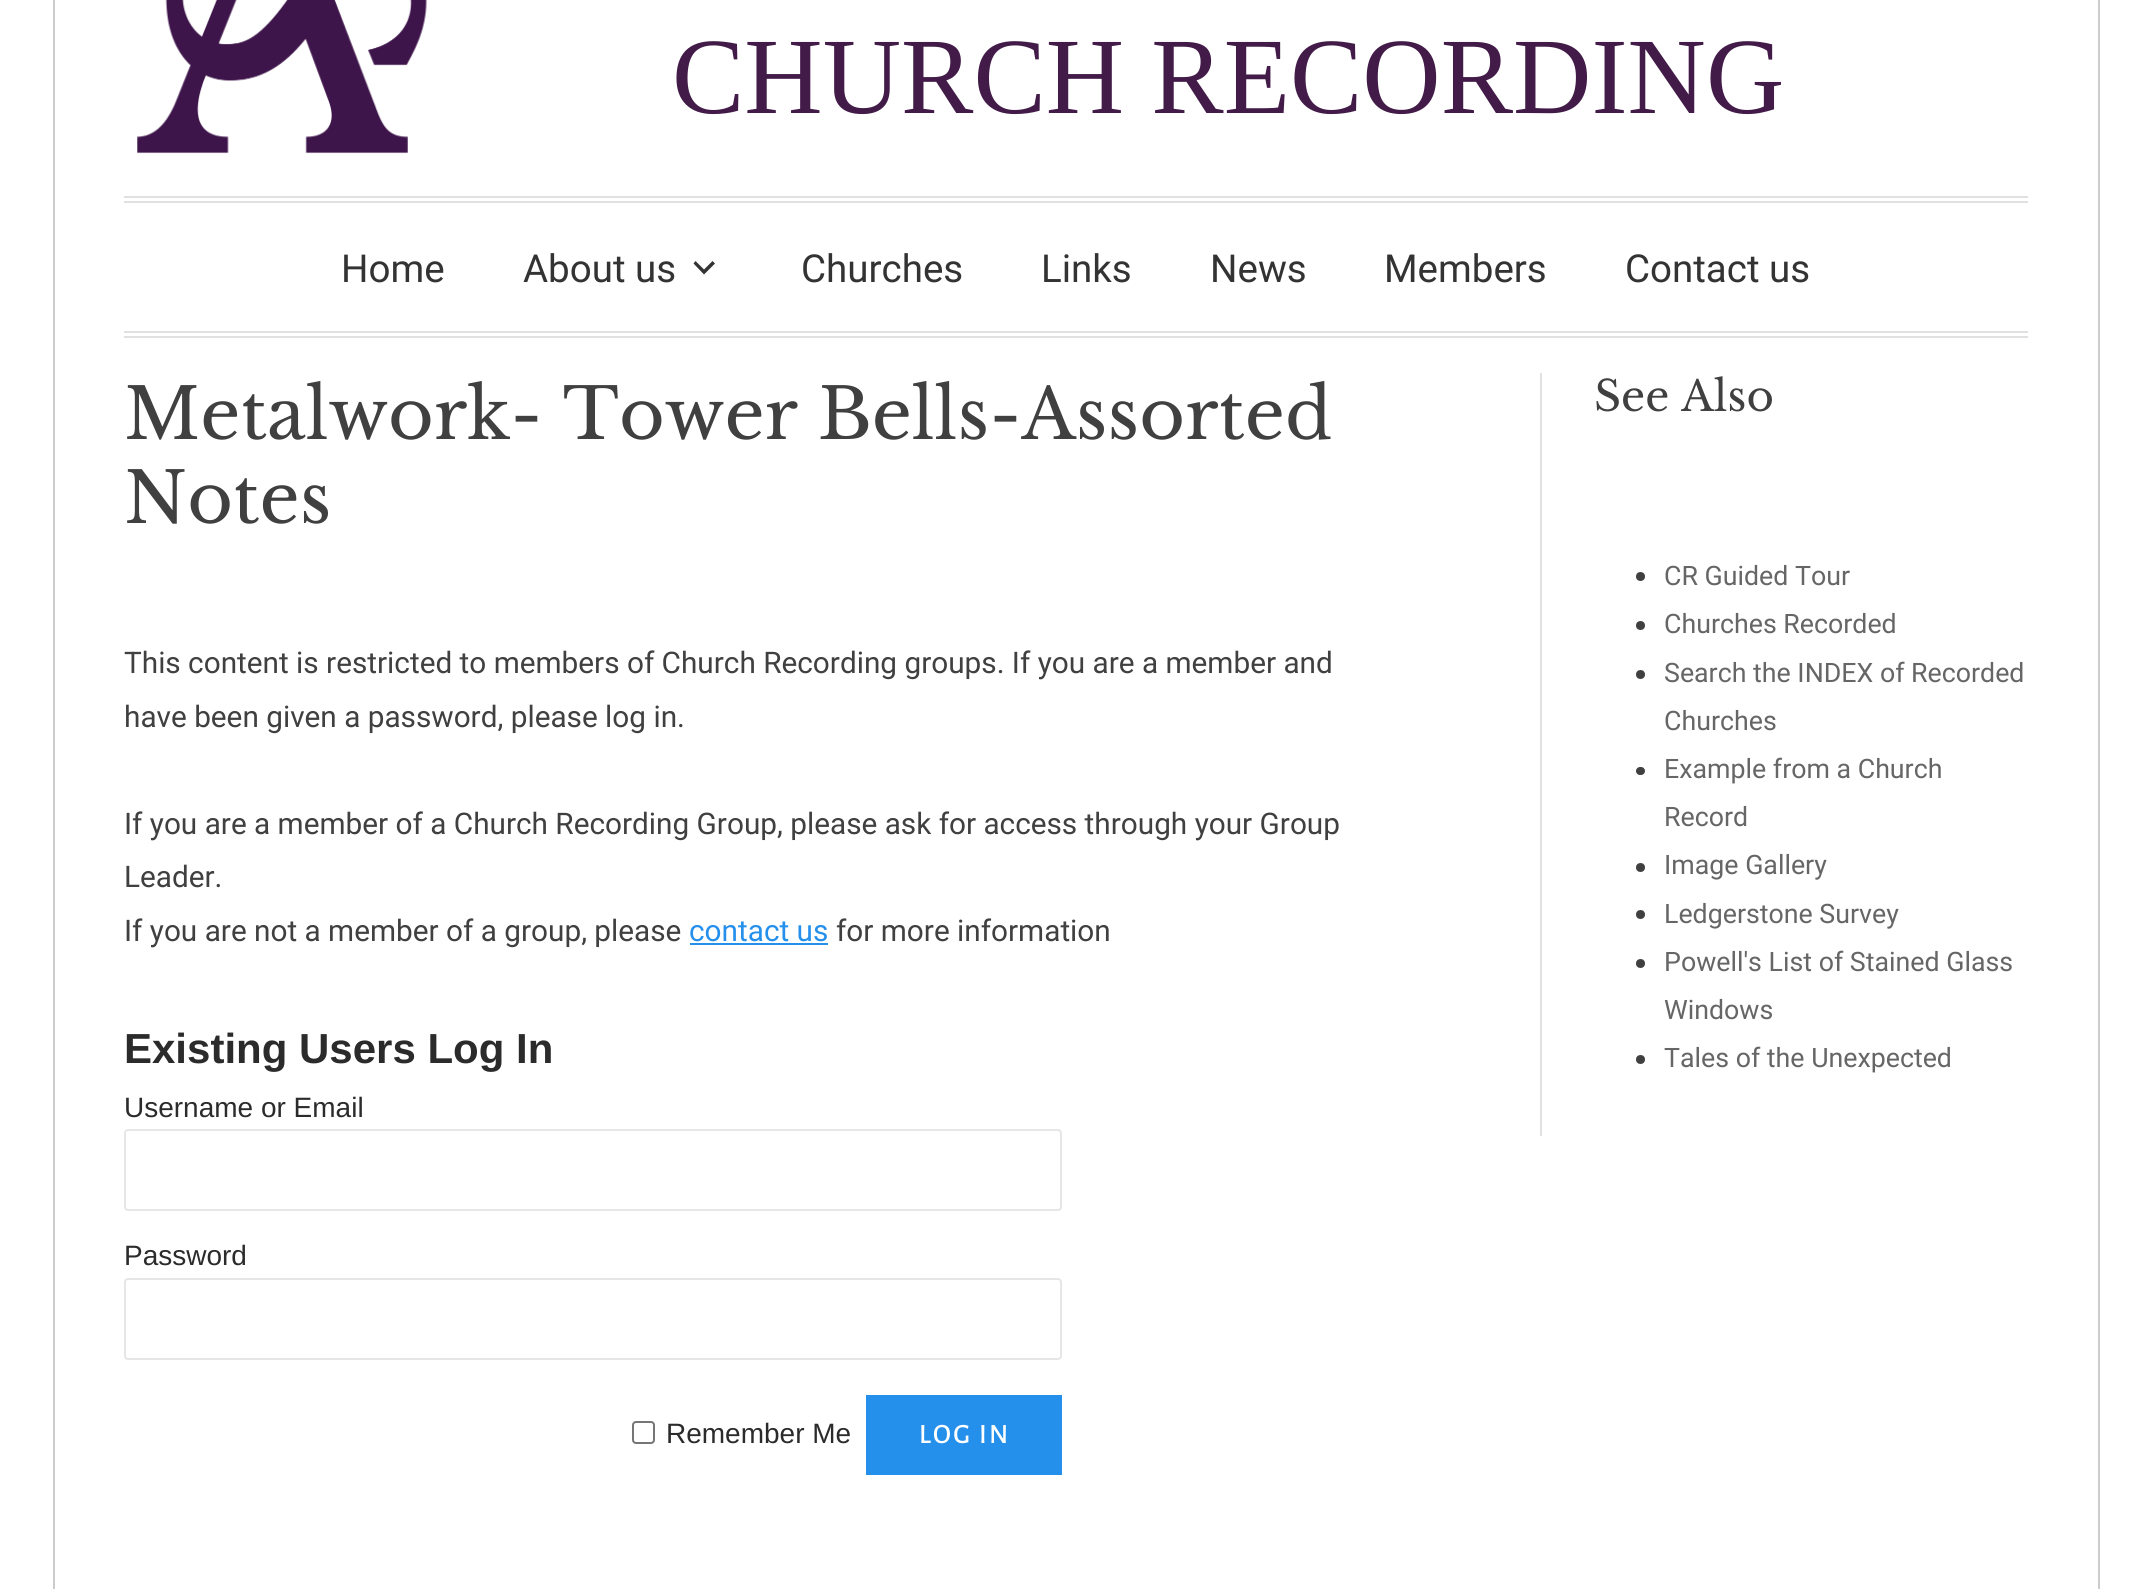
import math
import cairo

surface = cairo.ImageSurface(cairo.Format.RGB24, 2151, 1589)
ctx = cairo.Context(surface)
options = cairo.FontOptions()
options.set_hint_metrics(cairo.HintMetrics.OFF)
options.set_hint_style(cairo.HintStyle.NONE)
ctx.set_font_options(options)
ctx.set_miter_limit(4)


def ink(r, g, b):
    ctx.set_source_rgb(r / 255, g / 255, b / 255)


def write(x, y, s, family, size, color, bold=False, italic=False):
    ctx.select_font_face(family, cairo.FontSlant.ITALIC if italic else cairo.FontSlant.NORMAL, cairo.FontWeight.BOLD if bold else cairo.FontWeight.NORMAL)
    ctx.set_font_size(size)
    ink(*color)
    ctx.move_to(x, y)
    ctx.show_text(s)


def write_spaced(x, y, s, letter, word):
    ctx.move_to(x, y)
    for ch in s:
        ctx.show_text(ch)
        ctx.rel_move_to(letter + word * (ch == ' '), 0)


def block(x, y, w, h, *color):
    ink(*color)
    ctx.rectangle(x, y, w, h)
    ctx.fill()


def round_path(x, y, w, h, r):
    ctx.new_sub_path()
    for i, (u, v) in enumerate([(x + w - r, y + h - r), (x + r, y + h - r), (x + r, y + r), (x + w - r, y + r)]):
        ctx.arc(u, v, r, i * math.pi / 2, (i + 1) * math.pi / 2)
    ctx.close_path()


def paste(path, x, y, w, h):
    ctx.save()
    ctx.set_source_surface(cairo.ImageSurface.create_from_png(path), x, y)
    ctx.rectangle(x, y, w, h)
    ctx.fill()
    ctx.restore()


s1 = dict(family="Liberation Serif", size=108.5, color=(66, 27, 72))
s2 = dict(family="Roboto", size=38.5, color=(51, 51, 51))
s3 = dict(family="Libre Baskerville", size=70, color=(64, 64, 64))
s4 = dict(family="Roboto", size=29.75, color=(64, 64, 64))
s5 = dict(family="Roboto", size=29.75, color=(37, 144, 236))
s6 = dict(family="Liberation Sans", size=42, color=(43, 43, 43), bold=True)
s7 = dict(family="Liberation Sans", size=28, color=(43, 43, 43))
s8 = dict(family="Libre Baskerville", size=42, color=(64, 64, 64))
s9 = dict(family="Roboto", size=26.75, color=(102, 102, 102))

ink(255, 255, 255)
ctx.paint()
ctx.rectangle(54, -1, 2045, 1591)
ink(204, 204, 204)
ctx.stroke()
paste("pic1.png", 137, 0, 290, 154)
write(672, 113, "CHURCH RECORDING", **s1)
block(124, 196, 1904, 2, 225, 225, 225)
block(124, 201, 1904, 2, 225, 225, 225)
block(124, 331, 1904, 2, 225, 225, 225)
block(124, 336, 1904, 2, 225, 225, 225)
write(341, 282, "Home", **s2)
write(523, 282, "About us", **s2)
ctx.new_path()
ctx.move_to(712.5, 261)
ctx.line_to(715, 263.5)
ctx.line_to(704, 274.5)
ctx.line_to(693.5, 263.5)
ctx.line_to(695.5, 261)
ctx.line_to(704, 269.5)
ctx.close_path()
ctx.fill()
write(801, 282, "Churches", **s2)
write(1041, 282, "Links", **s2)
write(1210, 282, "News", **s2)
write(1384, 282, "Members", **s2)
write(1625, 282, "Contact us", **s2)
write(124, 439, "Metalwork- Tower Bells-Assorted", **s3)
write(124, 523, "Notes", **s3)
write(124, 673, "This content is restricted to members of Church Recording groups. If you are a member and", **s4)
write(124, 727, "have been given a password, please log in.", **s4)
write(124, 834, "If you are a member of a Church Recording Group, please ask for access through your Group", **s4)
write(124, 887, "Leader.", **s4)
write(124, 941, "If you are not a member of a group, please", **s4)
write(689, 941, "contact us", **s5)
block(690, 943, 138, 2, 37, 144, 236)
write(836, 941, "for more information", **s4)
write(124, 1063, "Existing Users Log In", **s6)
write(124, 1117, "Username or Email", **s7)
round_path(125, 1130, 936, 80, 3)
ink(230, 230, 230)
ctx.stroke()
write(124, 1265, "Password", **s7)
round_path(125, 1279, 936, 80, 3)
ink(230, 230, 230)
ctx.stroke()
round_path(633, 1422, 21, 21, 3)
ink(118, 118, 118)
ctx.stroke()
write(666, 1443, "Remember Me", **s7)
block(866, 1395, 196, 80, 37, 144, 236)
ctx.select_font_face("Alegreya Sans Medium")
ink(255, 255, 255)
write_spaced(919, 1443, "LOG IN", 2.25, 0)
block(1540, 373, 2, 763, 225, 225, 225)
write(1594, 411, "See Also", **s8)
ctx.new_path()
ctx.arc(1640.5, 576.5, 4.5, 0, 2 * math.pi)
ctx.fill()
write(1664, 585, "CR Guided Tour", **s9)
ink(64, 64, 64)
ctx.new_path()
ctx.arc(1640.5, 625.5, 4.5, 0, 2 * math.pi)
ctx.fill()
write(1664, 633, "Churches Recorded", **s9)
ink(64, 64, 64)
ctx.new_path()
ctx.arc(1640.5, 674.5, 4.5, 0, 2 * math.pi)
ctx.fill()
write(1664, 682, "Search the INDEX of Recorded", **s9)
write(1664, 730, "Churches", **s9)
ink(64, 64, 64)
round_path(1636, 767, 9, 8, 4)
ctx.fill()
write(1664, 778, "Example from a Church", **s9)
write(1664, 826, "Record", **s9)
ink(64, 64, 64)
ctx.new_path()
ctx.arc(1640.5, 867.5, 4.5, 0, 2 * math.pi)
ctx.fill()
write(1664, 874, "Image Gallery", **s9)
ink(64, 64, 64)
ctx.new_path()
ctx.arc(1640.5, 914.5, 4.5, 0, 2 * math.pi)
ctx.fill()
write(1664, 923, "Ledgerstone Survey", **s9)
ink(64, 64, 64)
ctx.new_path()
ctx.arc(1640.5, 963.5, 4.5, 0, 2 * math.pi)
ctx.fill()
write(1664, 971, "Powell's List of Stained Glass", **s9)
write(1664, 1019, "Windows", **s9)
ink(64, 64, 64)
ctx.new_path()
ctx.arc(1640.5, 1059.5, 4.5, 0, 2 * math.pi)
ctx.fill()
write(1664, 1067, "Tales of the Unexpected", **s9)
surface.write_to_png("screenshot.png")
